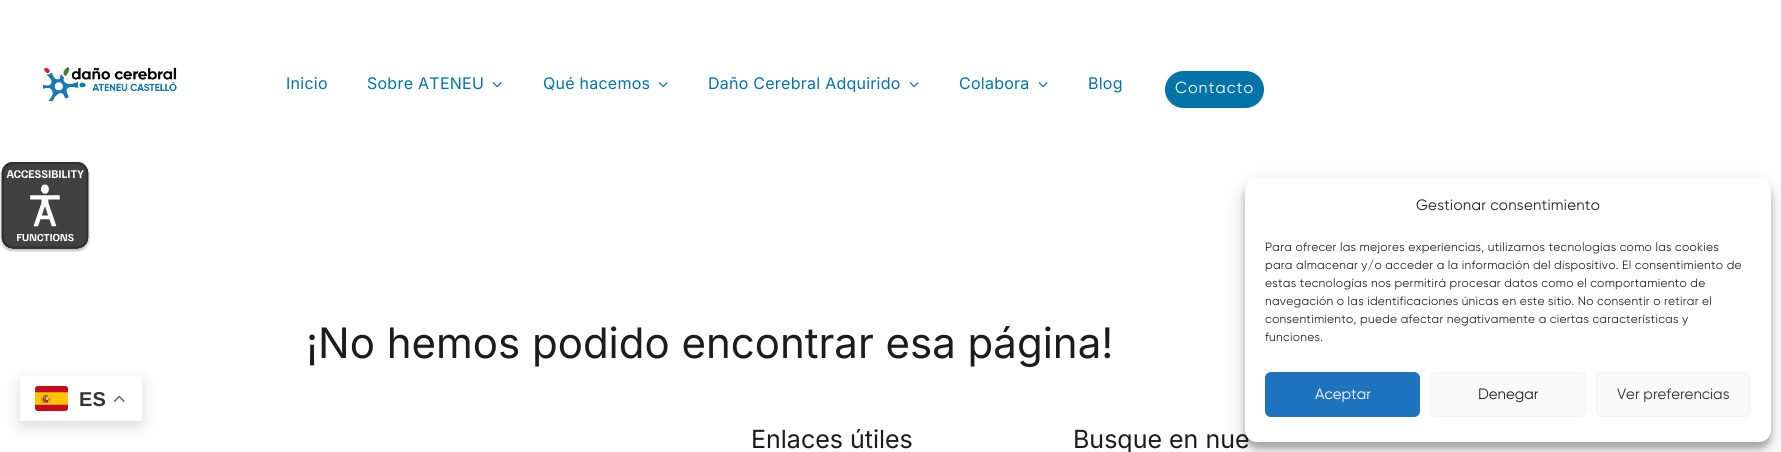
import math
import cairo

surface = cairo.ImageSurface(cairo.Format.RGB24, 1781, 452)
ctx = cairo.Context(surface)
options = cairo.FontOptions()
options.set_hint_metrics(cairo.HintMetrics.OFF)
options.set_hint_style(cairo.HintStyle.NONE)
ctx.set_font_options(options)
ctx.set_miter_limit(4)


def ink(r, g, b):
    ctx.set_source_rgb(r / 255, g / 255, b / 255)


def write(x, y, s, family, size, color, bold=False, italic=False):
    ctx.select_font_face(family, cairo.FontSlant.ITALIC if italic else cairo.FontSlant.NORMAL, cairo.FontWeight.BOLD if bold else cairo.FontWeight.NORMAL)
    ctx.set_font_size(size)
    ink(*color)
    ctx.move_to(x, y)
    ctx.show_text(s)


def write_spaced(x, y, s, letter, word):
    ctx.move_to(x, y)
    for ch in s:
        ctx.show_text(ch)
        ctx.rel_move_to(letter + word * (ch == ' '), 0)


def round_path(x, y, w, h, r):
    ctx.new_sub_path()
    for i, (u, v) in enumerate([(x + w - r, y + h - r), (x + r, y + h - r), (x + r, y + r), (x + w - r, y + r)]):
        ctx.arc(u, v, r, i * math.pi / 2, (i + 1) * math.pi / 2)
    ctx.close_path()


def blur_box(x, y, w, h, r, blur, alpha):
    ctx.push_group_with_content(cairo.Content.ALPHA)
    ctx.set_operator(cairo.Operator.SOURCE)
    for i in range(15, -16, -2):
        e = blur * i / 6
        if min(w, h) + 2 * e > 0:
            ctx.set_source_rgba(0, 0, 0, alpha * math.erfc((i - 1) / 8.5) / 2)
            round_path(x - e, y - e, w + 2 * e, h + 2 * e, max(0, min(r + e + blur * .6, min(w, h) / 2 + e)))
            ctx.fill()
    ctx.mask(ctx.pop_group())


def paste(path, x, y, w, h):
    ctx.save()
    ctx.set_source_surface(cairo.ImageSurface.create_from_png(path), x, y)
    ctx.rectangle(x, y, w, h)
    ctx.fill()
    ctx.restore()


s1 = dict(family="Inter", size=42, color=(28, 28, 28))
s2 = dict(family="Inter", size=25, color=(28, 28, 28))
s3 = dict(family="Gilroy", size=15, color=(255, 255, 255))
s4 = dict(family="Gilroy", size=15, color=(34, 34, 34))
s5 = dict(family="Gilroy", size=15, color=(51, 51, 51))

ink(255, 255, 255)
ctx.paint()
paste("pic1.png", 0, 162, 90, 90)
ink(0, 0, 0)
blur_box(20, 381, 122, 45, 2, 7.5, 0.15)
ink(255, 255, 255)
round_path(20, 376, 122, 45, 2)
ctx.fill()
paste("pic2.png", 35, 386, 33, 25)
ctx.select_font_face("Liberation Sans", cairo.FontSlant.NORMAL, cairo.FontWeight.BOLD)
ctx.set_font_size(20)
ink(51, 51, 51)
write_spaced(79, 406, "ES", 0.27, 0)
paste("pic3.png", 114, 395, 11, 7)
paste("pic4.png", 42, 67, 135, 35)
ctx.select_font_face("Inter")
ctx.set_font_size(16)
ink(0, 116, 168)
write_spaced(286, 89, "Inicio", 0.25, 0)
write_spaced(367, 89, "Sobre ATENEU", 0.25, 0)
paste("pic5.png", 492, 82, 10, 6)
write_spaced(543, 89, "Qué hacemos", 0.25, 0)
paste("pic5.png", 658, 82, 10, 6)
write_spaced(708, 89, "Daño Cerebral Adquirido", 0.25, 0)
paste("pic5.png", 909, 82, 10, 6)
write_spaced(959, 89, "Colabora", 0.25, 0)
paste("pic5.png", 1038, 82, 10, 6)
write_spaced(1088, 89, "Blog", 0.25, 0)
round_path(1164, 70, 101, 39, 19.5)
ctx.fill_preserve()
ink(255, 255, 255)
ctx.stroke()
ctx.select_font_face("Gilroy")
write_spaced(1175, 93, "Contacto", 1, 0)
write(306, 358, "¡No hemos podido encontrar esa página!", **s1)
write(751, 448, "Enlaces útiles", **s2)
write(1073, 448, "Busque en nue", **s2)
ink(0, 0, 0)
blur_box(1245, 184, 526, 264, 12, 3, 0.23)
blur_box(1245, 188, 526, 264, 12, 10, 0.19)
ink(255, 255, 255)
round_path(1245, 178, 526, 264, 12)
ctx.fill()
ctx.select_font_face("Gilroy")
ctx.set_font_size(15)
ink(34, 34, 34)
write_spaced(1416, 210, "Gestionar consentimiento", 0.27, 0)
ctx.set_font_size(12)
write_spaced(1265, 251, "Para ofrecer las mejores experiencias, utilizamos tecnologías como las cookies", 0.27, 0)
write_spaced(1265, 269, "para almacenar y/o acceder a la información del dispositivo. El consentimiento de", 0.27, 0)
write_spaced(1265, 287, "estas tecnologías nos permitirá procesar datos como el comportamiento de", 0.27, 0)
write_spaced(1265, 305, "navegación o las identificaciones únicas en este sitio. No consentir o retirar el", 0.27, 0)
write_spaced(1265, 323, "consentimiento, puede afectar negativamente a ciertas características y", 0.27, 0)
write_spaced(1265, 341, "funciones.", 0.27, 0)
ink(30, 115, 190)
round_path(1265.5, 372.5, 154, 44, 5.5)
ctx.fill_preserve()
ctx.set_line_width(1)
ctx.stroke()
write(1315, 399, "Aceptar", **s3)
ink(249, 249, 249)
round_path(1430.5, 372.5, 155, 44, 5.5)
ctx.fill_preserve()
ink(242, 242, 242)
ctx.stroke()
write(1478, 399, "Denegar", **s4)
ink(249, 249, 249)
round_path(1596.5, 372.5, 154, 44, 5.5)
ctx.fill_preserve()
ink(242, 242, 242)
ctx.stroke()
write(1617, 399, "Ver preferencias", **s5)
surface.write_to_png("screenshot.png")
